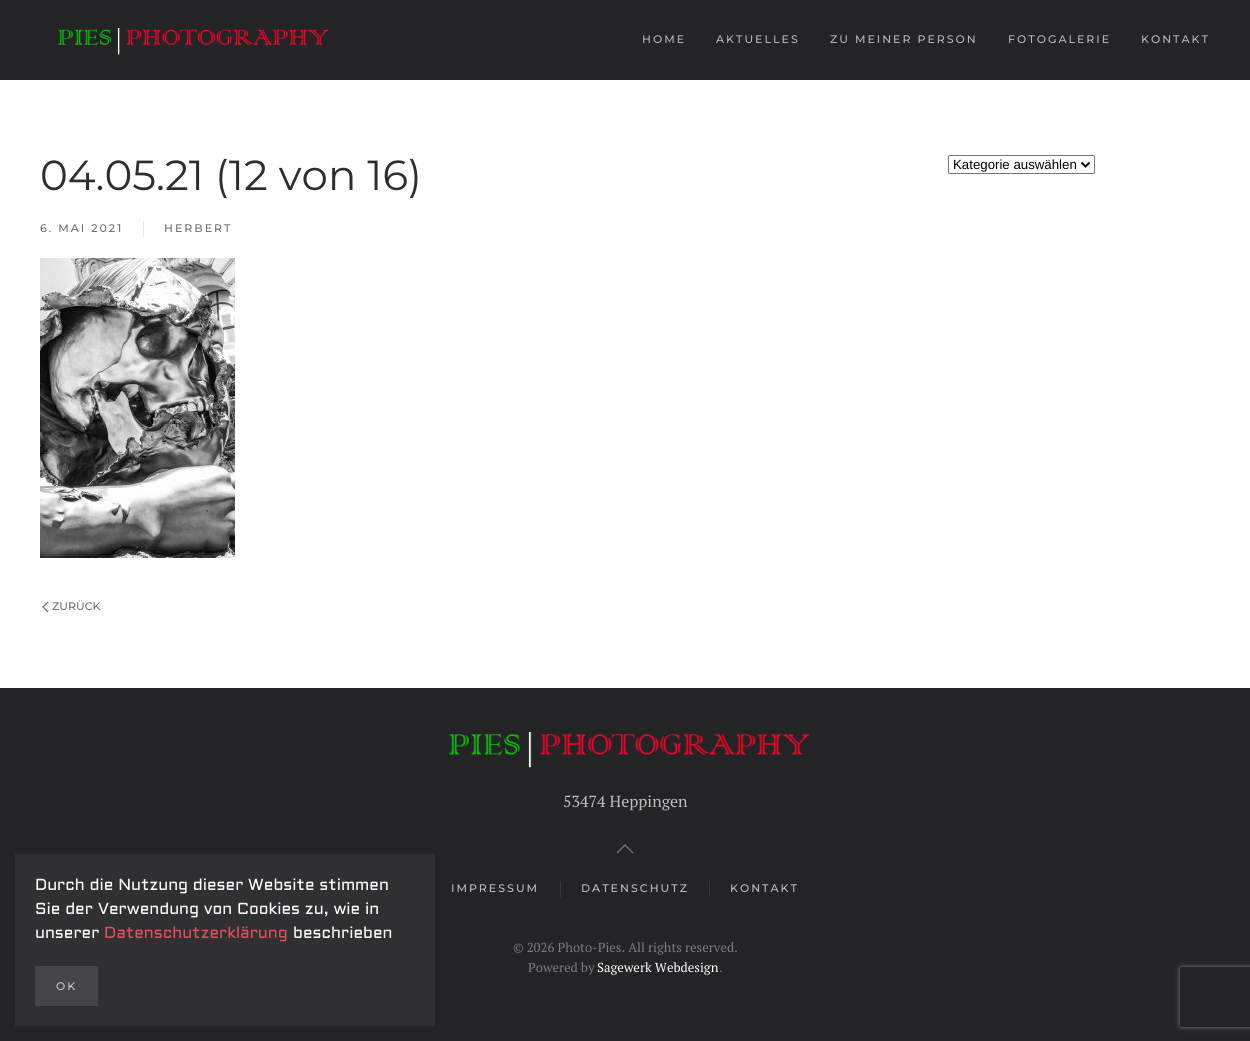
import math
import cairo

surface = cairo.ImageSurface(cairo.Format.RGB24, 1250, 1041)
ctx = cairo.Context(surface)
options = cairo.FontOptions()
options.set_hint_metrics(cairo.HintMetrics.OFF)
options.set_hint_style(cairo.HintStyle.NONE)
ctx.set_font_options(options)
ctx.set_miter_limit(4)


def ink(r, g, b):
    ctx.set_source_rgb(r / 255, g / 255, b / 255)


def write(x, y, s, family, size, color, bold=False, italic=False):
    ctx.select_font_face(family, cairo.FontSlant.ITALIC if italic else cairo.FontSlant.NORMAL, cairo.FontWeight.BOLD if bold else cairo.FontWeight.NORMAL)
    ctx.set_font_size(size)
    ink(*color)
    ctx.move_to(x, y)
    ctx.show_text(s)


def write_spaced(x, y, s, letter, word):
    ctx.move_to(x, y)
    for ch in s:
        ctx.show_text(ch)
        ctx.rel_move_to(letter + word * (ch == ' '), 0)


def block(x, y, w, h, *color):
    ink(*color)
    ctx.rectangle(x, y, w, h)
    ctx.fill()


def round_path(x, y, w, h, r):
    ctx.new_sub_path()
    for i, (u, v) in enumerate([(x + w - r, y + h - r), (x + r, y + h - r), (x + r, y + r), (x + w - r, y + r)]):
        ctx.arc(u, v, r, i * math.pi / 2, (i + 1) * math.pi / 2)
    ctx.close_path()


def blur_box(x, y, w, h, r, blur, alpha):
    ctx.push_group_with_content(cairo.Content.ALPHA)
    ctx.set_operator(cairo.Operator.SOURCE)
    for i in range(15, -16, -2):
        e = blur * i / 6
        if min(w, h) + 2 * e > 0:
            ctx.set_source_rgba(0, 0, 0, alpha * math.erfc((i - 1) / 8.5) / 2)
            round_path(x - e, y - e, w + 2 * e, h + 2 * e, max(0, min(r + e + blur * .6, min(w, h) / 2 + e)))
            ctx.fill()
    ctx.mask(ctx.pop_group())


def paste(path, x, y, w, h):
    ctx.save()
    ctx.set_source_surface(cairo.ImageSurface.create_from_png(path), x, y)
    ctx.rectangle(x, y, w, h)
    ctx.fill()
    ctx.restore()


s1 = dict(family="Montserrat Alternates", size=42, color=(45, 46, 51))
s2 = dict(family="Montserrat Thin", size=11, color=(108, 109, 116))
s3 = dict(family="Liberation Sans", size=13.25, color=(0, 0, 0))
s4 = dict(family="PT Serif", size=16, color=(189, 189, 190))
s5 = dict(family="PT Serif", size=13, color=(124, 124, 125))
s6 = dict(family="PT Serif", size=13, color=(255, 255, 255))
s7 = dict(family="Aldrich", size=16, color=(255, 255, 255))
s8 = dict(family="Aldrich", size=16, color=(228, 78, 86))

ink(255, 255, 255)
ctx.paint()
block(0, 0, 1250, 80, 36, 36, 39)
paste("pic1.png", 58, 28, 271, 27)
ctx.select_font_face("Montserrat Thin")
ctx.set_font_size(11)
ink(180, 181, 186)
write_spaced(642, 43, "HOME", 2, 0)
write_spaced(716, 43, "AKTUELLES", 2, 0)
write_spaced(830, 43, "ZU MEINER PERSON", 2, 0)
write_spaced(1008, 43, "FOTOGALERIE", 2, 0)
write_spaced(1141, 43, "KONTAKT", 2, 0)
write(40, 190, "04.05.21 (12 von 16)", **s1)
ctx.select_font_face("Montserrat Thin")
ctx.set_font_size(11)
ink(108, 109, 116)
write_spaced(40, 232, "6. MAI 2021", 2, 0)
block(143, 221, 1, 16, 229, 229, 231)
ink(108, 109, 116)
write_spaced(164, 232, "HERBERT", 2, 0)
paste("pic2.png", 40, 258, 195, 300)
ctx.new_path()
ctx.move_to(48, 602)
ctx.line_to(43, 607)
ctx.line_to(48, 612)
ctx.set_line_width(1.2)
ctx.stroke()
write(52, 610, "ZURÜCK", **s2)
round_path(948.5, 155.5, 146, 18, 1.5)
ink(118, 118, 118)
ctx.set_line_width(1)
ctx.stroke()
ctx.new_path()
ctx.move_to(1081.5, 162.5)
ctx.line_to(1085.5, 166.5)
ctx.line_to(1089.5, 162.5)
ink(0, 0, 0)
ctx.set_line_width(2)
ctx.stroke()
write(953, 169, "Kategorie auswählen", **s3)
block(0, 688, 1250, 353, 36, 36, 39)
paste("pic3.png", 449, 732, 361, 36)
write(563, 807, "53474 Heppingen", **s4)
ctx.new_path()
ctx.move_to(617, 853)
ctx.line_to(625, 845)
ctx.line_to(633, 853)
ink(124, 124, 125)
ctx.set_line_width(1.2)
ctx.stroke()
ctx.select_font_face("Montserrat Thin")
ctx.set_font_size(11)
ink(189, 189, 190)
write_spaced(451, 892, "IMPRESSUM", 2, 0)
block(560, 881, 1, 16, 58, 58, 61)
ink(189, 189, 190)
write_spaced(581, 892, "DATENSCHUTZ", 2, 0)
block(709, 881, 1, 16, 58, 58, 61)
ink(189, 189, 190)
write_spaced(730, 892, "KONTAKT", 2, 0)
write(513, 952, "© 2026 Photo-Pies. All rights reserved.", **s5)
write(528, 972, "Powered by", **s5)
write(597, 972, "Sagewerk Webdesign", **s6)
write(719, 972, ".", **s5)
block(15, 854, 420, 172, 48, 48, 51)
write(35, 890, "Durch die Nutzung dieser Website stimmen", **s7)
write(35, 914, "Sie der Verwendung von Cookies zu, wie in", **s7)
write(35, 938, "unserer", **s7)
write(104, 938, "Datenschutzerklärung", **s8)
write(293, 938, "beschrieben", **s7)
block(35, 966, 63, 40, 69, 69, 71)
ctx.select_font_face("Montserrat Thin")
ctx.set_font_size(11)
ink(199, 199, 200)
write_spaced(56, 990, "OK", 2, 0)
ctx.save()
ctx.set_fill_rule(cairo.FillRule.EVEN_ODD)
ctx.new_path()
ctx.move_to(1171, 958)
ctx.line_to(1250, 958)
ctx.line_to(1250, 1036)
ctx.line_to(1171, 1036)
ctx.close_path()
ctx.move_to(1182, 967)
ctx.line_to(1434, 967)
ctx.curve_to(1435, 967, 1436, 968, 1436, 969)
ctx.line_to(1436, 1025)
ctx.curve_to(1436, 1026, 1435, 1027, 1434, 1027)
ctx.line_to(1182, 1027)
ctx.curve_to(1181, 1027, 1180, 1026, 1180, 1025)
ctx.line_to(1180, 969)
ctx.curve_to(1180, 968, 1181, 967, 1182, 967)
ctx.close_path()
ctx.clip()
ink(128, 128, 128)
blur_box(1180, 967, 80, 60, 2, 2.5, 1)
ctx.restore()
surface.write_to_png("screenshot.png")
